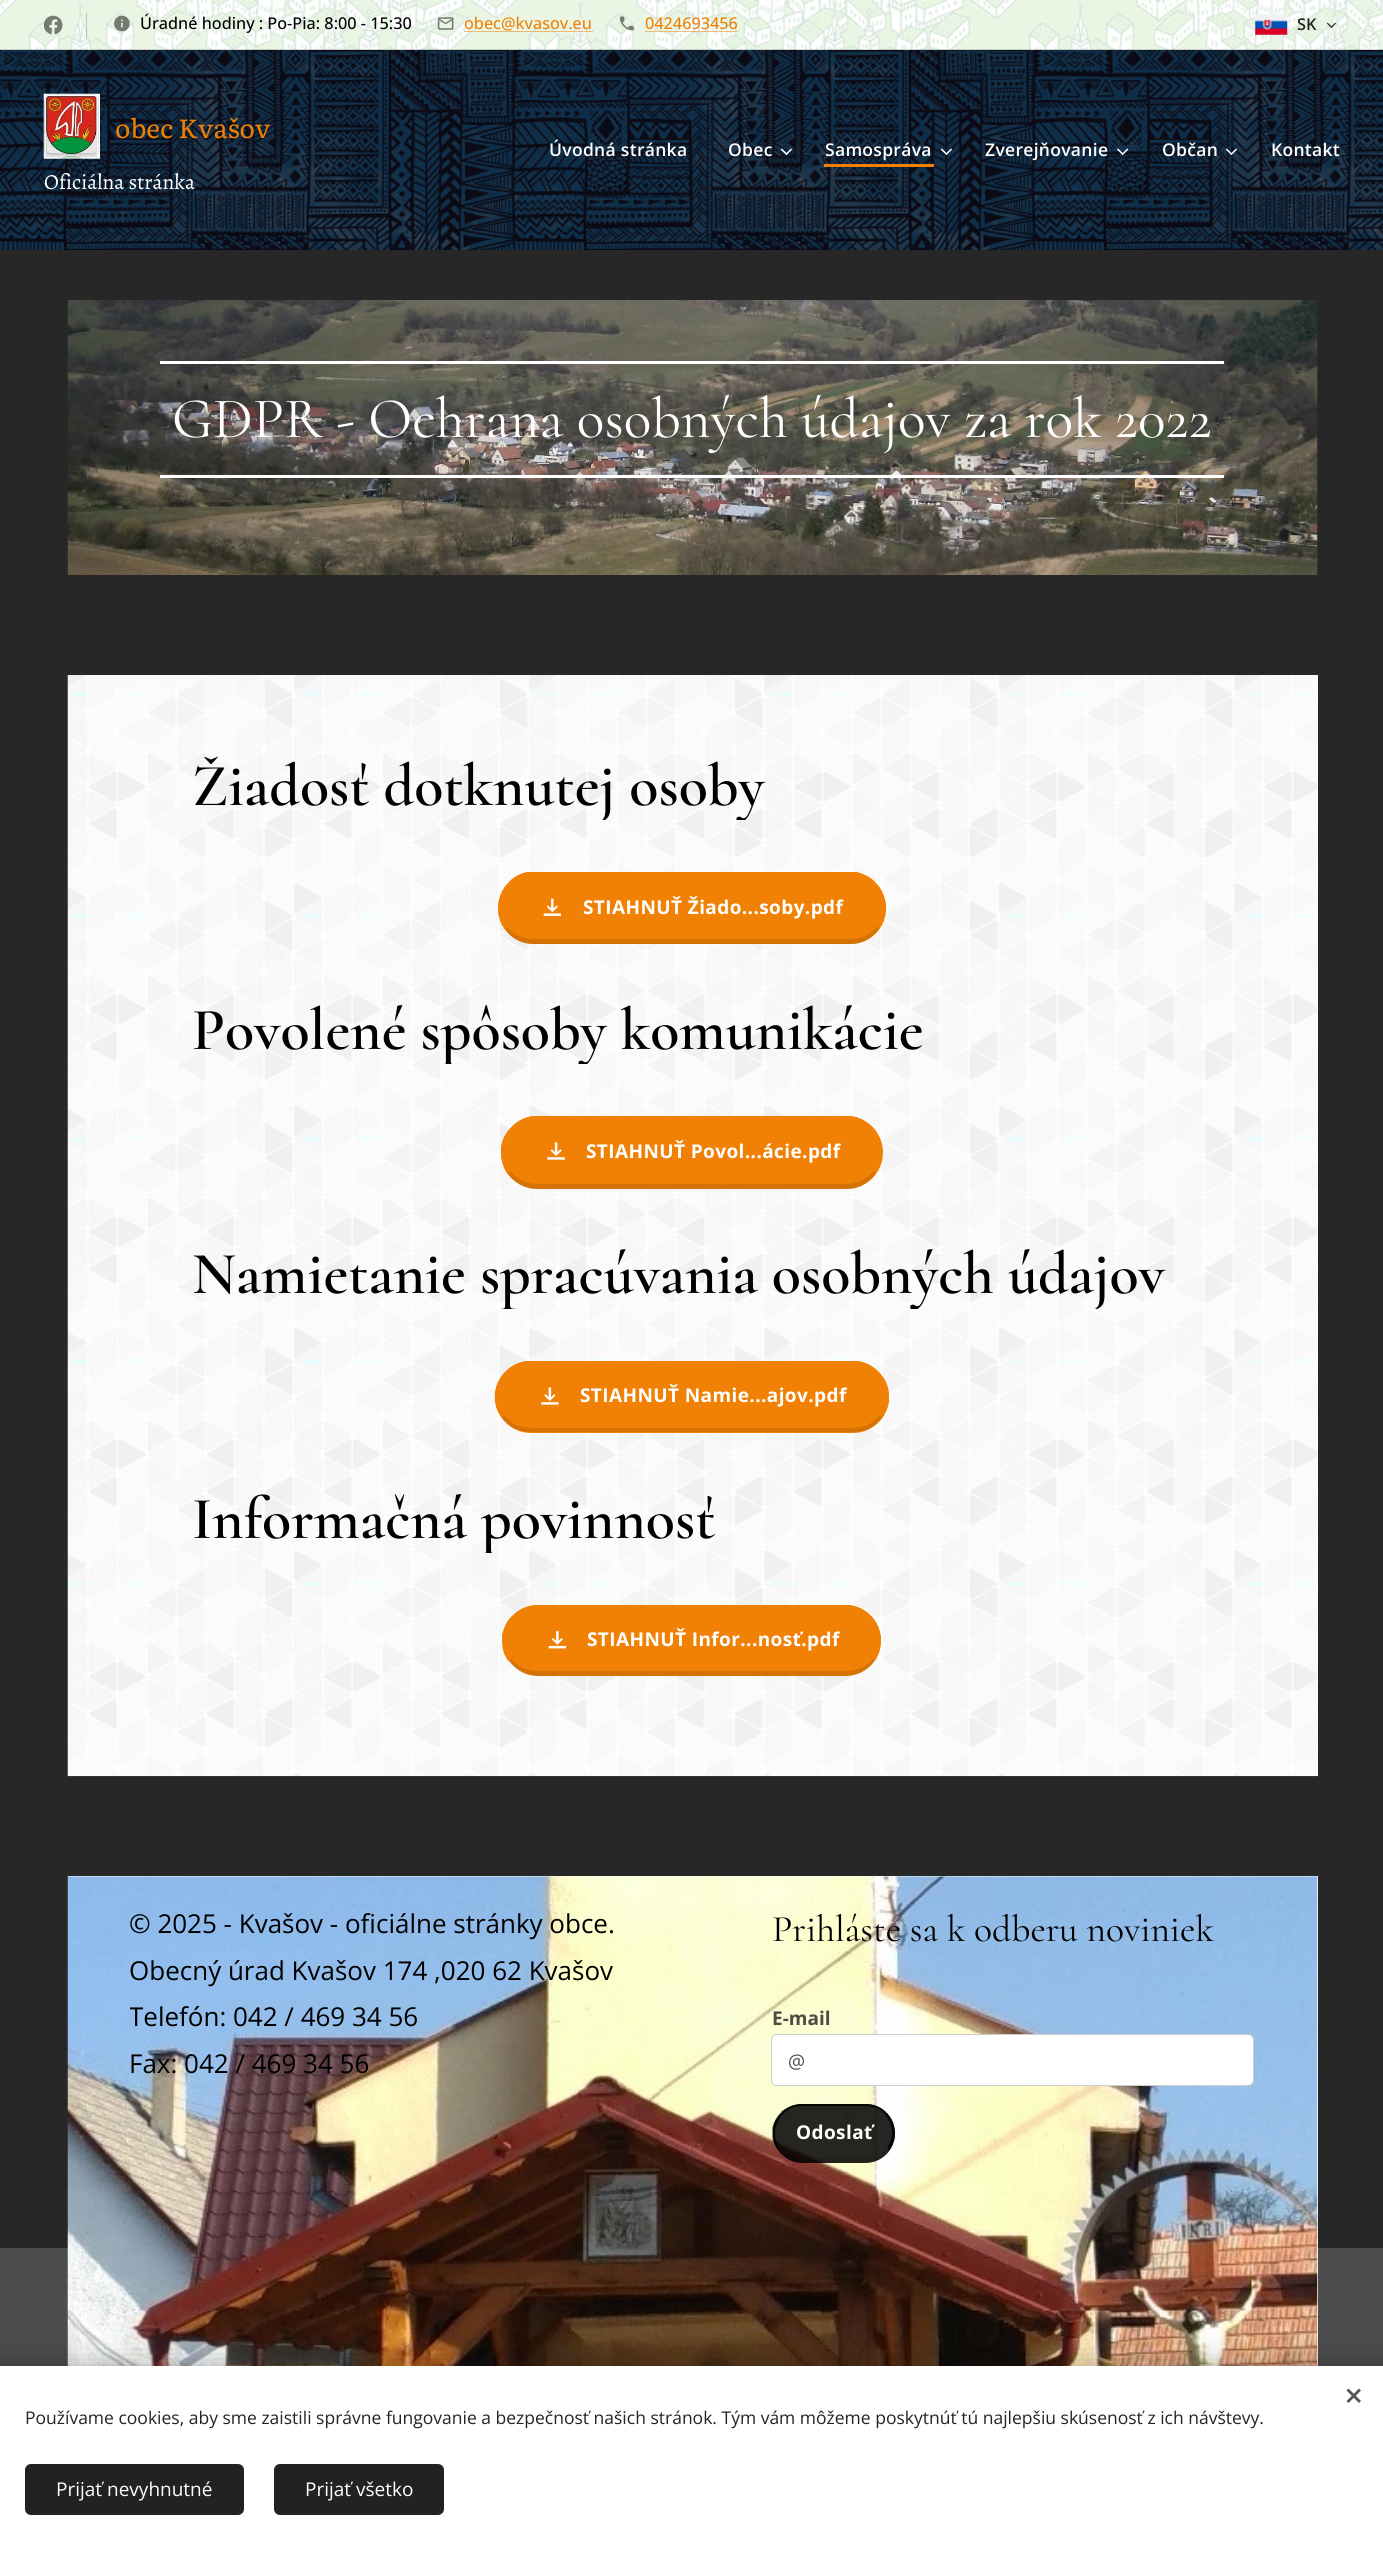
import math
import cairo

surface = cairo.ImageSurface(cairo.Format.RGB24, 1383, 2557)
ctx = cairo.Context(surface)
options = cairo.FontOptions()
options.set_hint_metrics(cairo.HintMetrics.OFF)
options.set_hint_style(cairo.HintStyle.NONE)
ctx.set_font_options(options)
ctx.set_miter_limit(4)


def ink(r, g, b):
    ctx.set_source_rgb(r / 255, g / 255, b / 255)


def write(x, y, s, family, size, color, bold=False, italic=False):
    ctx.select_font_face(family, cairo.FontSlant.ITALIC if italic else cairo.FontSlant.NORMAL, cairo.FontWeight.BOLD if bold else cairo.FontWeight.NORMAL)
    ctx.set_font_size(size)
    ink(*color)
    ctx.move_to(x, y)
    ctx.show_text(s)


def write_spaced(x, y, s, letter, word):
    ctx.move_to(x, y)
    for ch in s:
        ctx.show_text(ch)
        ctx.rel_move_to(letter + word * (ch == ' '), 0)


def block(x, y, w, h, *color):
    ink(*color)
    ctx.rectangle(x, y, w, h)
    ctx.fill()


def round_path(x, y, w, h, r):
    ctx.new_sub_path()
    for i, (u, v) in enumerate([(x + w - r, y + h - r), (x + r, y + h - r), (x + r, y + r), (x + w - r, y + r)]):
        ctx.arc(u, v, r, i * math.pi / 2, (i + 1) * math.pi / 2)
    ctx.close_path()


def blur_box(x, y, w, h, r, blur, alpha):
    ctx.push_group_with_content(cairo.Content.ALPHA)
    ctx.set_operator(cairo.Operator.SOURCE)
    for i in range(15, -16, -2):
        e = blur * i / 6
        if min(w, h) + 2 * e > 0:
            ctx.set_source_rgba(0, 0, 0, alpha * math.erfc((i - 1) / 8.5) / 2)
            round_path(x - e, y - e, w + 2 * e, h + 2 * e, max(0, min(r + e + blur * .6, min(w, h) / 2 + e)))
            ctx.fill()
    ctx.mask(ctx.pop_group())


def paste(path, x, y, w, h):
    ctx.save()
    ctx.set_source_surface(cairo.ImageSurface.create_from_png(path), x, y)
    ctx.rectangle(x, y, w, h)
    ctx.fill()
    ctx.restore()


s1 = dict(family="Open Sans Medium", size=16.25, color=(0, 0, 0))
s2 = dict(family="Open Sans Medium", size=16.25, color=(240, 129, 5))
s3 = dict(family="Open Sans SemiBold", size=16.25, color=(35, 36, 34))
s4 = dict(family="Literata", size=26.25, color=(240, 129, 5))
s5 = dict(family="Alegreya", size=21.5, color=(255, 255, 255))
s6 = dict(family="Cormorant", size=57.5, color=(255, 255, 255))
s7 = dict(family="Cormorant SemiBold", size=60, color=(0, 0, 0))
s8 = dict(family="Open Sans", size=26, color=(0, 0, 0))
s9 = dict(family="Cormorant", size=37.5, color=(0, 0, 0))
s10 = dict(family="Open Sans", size=19, color=(76, 76, 63), bold=True)
s11 = dict(family="Open Sans", size=19, color=(77, 77, 77))
s12 = dict(family="Open Sans", size=17.5, color=(35, 36, 34))
s13 = dict(family="Open Sans", size=19, color=(255, 255, 255))

ink(39, 39, 39)
ctx.paint()
paste("pic1.png", 0, 0, 1383, 50)
paste("pic2.png", 44, 15, 19, 20)
ctx.set_source_rgba(0, 0, 0, 0.2)
ctx.rectangle(86, 13, 1, 25)
ctx.fill()
paste("pic3.png", 114, 15, 16, 17)
write(140, 29, "Úradné hodiny : Po-Pia: 8:00 - 15:30", **s1)
paste("pic4.png", 437, 17, 17, 13)
write(464, 29, "obec@kvasov.eu", **s2)
ctx.set_source_rgba(0.941, 0.506, 0.02, 0.5)
ctx.rectangle(464, 31, 129, 1)
ctx.fill()
paste("pic5.png", 619, 16, 15, 15)
write(645, 29, "0424693456", **s2)
ctx.set_source_rgba(0.941, 0.506, 0.02, 0.5)
ctx.rectangle(645, 31, 93, 1)
ctx.fill()
paste("pic6.png", 1255, 14, 33, 21)
write(1297, 30, "SK", **s3)
paste("pic7.png", 1327, 22, 9, 6)
ctx.set_source_rgba(0, 0, 0, 0.15)
ctx.rectangle(0, 49, 1383, 1)
ctx.fill()
paste("pic8.png", 0, 50, 1383, 200)
paste("pic9.png", 43, 93, 57, 66)
write(115, 138, "obec Kvašov", **s4)
write(44, 189, "Oficiálna stránka", **s5)
ctx.select_font_face("Open Sans SemiBold")
ctx.set_font_size(17.5)
write_spaced(549, 156, "Úvodná stránka", 0.3, 0)
write_spaced(728, 156, "Obec", 0.3, 0)
paste("pic10.png", 780, 148, 12, 7)
write_spaced(825, 156, "Samospráva", 0.3, 0)
block(824, 164, 110, 3, 240, 129, 5)
paste("pic11.png", 940, 148, 12, 7)
ink(255, 255, 255)
write_spaced(985, 156, "Zverejňovanie", 0.3, 0)
paste("pic12.png", 1117, 148, 12, 7)
write_spaced(1162, 156, "Občan", 0.3, 0)
paste("pic13.png", 1225, 148, 12, 7)
write_spaced(1271, 156, "Kontakt", 0.3, 0)
paste("pic14.png", 67, 300, 1251, 275)
block(160, 361, 1064, 3, 255, 255, 255)
block(160, 475, 1064, 3, 255, 255, 255)
write(172, 437, "GDPR - Ochrana osobných údajov za rok 2022", **s6)
block(1317, 675, 1, 1101, 255, 255, 255)
paste("pic15.png", 67, 675, 1251, 1102)
ctx.save()
ctx.rectangle(193, 753, 1000, 67)
ctx.clip()
write(192, 805, "Žiadosť dotknutej osoby", **s7)
ctx.restore()
ink(240, 129, 5)
round_path(498, 873, 388, 71, 35.5)
ctx.fill()
ctx.new_path()
ctx.move_to(533, 875)
ctx.curve_to(524, 875, 516, 879, 510, 885)
ctx.line_to(508, 883)
ctx.curve_to(513, 877, 519, 874, 527, 872)
ctx.line_to(857, 872)
ctx.curve_to(864, 874, 871, 877, 876, 883)
ctx.line_to(874, 885)
ctx.curve_to(868, 879, 860, 875, 851, 875)
ctx.close_path()
ctx.fill()
ctx.new_path()
ctx.move_to(876, 883)
ctx.curve_to(888, 895, 889, 915, 879, 929)
ctx.line_to(878, 926)
ctx.curve_to(887, 914, 885, 896, 874, 885)
ctx.close_path()
ctx.fill()
ctx.set_source_rgba(0, 0, 0, 0.12)
ctx.new_path()
ctx.move_to(529, 944)
ctx.curve_to(519, 943, 510, 937, 505, 929)
ctx.line_to(506, 926)
ctx.curve_to(512, 934, 522, 939, 533, 939)
ctx.line_to(851, 939)
ctx.curve_to(862, 939, 871, 934, 878, 926)
ctx.line_to(879, 929)
ctx.curve_to(873, 937, 865, 943, 855, 944)
ctx.close_path()
ctx.fill()
ink(240, 129, 5)
ctx.new_path()
ctx.move_to(505, 929)
ctx.curve_to(495, 916, 496, 895, 508, 883)
ctx.line_to(510, 885)
ctx.curve_to(499, 896, 497, 914, 506, 926)
ctx.close_path()
ctx.fill()
paste("pic16.png", 543, 898, 18, 18)
ctx.select_font_face("Open Sans", cairo.FontSlant.NORMAL, cairo.FontWeight.BOLD)
ctx.set_font_size(19)
ink(255, 255, 255)
write_spaced(583, 914, "STIAHNUŤ Žiado...soby.pdf", 0.4, 0)
ctx.save()
ctx.rectangle(193, 996, 1000, 68)
ctx.clip()
write(192, 1049, "Povolené spôsoby komunikácie", **s7)
ctx.restore()
ink(240, 129, 5)
round_path(501, 1116, 382, 73, 36.5)
ctx.fill()
ctx.new_path()
ctx.move_to(538, 1119)
ctx.curve_to(528, 1119, 520, 1123, 514, 1129)
ctx.line_to(512, 1127)
ctx.curve_to(517, 1121, 525, 1117, 533, 1116)
ctx.line_to(850, 1116)
ctx.curve_to(859, 1117, 866, 1121, 872, 1127)
ctx.line_to(870, 1129)
ctx.curve_to(864, 1123, 855, 1119, 846, 1119)
ctx.close_path()
ctx.fill()
ctx.new_path()
ctx.move_to(872, 1127)
ctx.curve_to(884, 1139, 885, 1160, 875, 1174)
ctx.line_to(874, 1171)
ctx.curve_to(883, 1158, 881, 1140, 870, 1129)
ctx.close_path()
ctx.fill()
ctx.set_source_rgba(0, 0, 0, 0.12)
ctx.new_path()
ctx.move_to(533, 1189)
ctx.curve_to(523, 1188, 514, 1182, 508, 1175)
ctx.line_to(510, 1171)
ctx.curve_to(516, 1179, 526, 1184, 538, 1184)
ctx.line_to(846, 1184)
ctx.curve_to(857, 1184, 867, 1179, 874, 1171)
ctx.line_to(875, 1174)
ctx.curve_to(869, 1182, 861, 1188, 850, 1189)
ctx.close_path()
ctx.fill()
ink(240, 129, 5)
ctx.new_path()
ctx.move_to(501, 1148)
ctx.curve_to(502, 1139, 506, 1132, 512, 1127)
ctx.line_to(514, 1129)
ctx.curve_to(503, 1140, 501, 1158, 510, 1171)
ctx.line_to(508, 1175)
ctx.curve_to(502, 1166, 501, 1158, 501, 1148)
ctx.close_path()
ctx.fill()
paste("pic17.png", 547, 1142, 18, 18)
ink(255, 255, 255)
write_spaced(586, 1158, "STIAHNUŤ Povol...ácie.pdf", 0.4, 0)
ctx.save()
ctx.rectangle(193, 1241, 1000, 68)
ctx.clip()
write(192, 1293, "Namietanie spracúvania osobných údajov", **s7)
ctx.restore()
ink(240, 129, 5)
round_path(495, 1361, 394, 72, 36)
ctx.fill()
ctx.new_path()
ctx.move_to(531, 1364)
ctx.curve_to(522, 1364, 513, 1368, 507, 1374)
ctx.line_to(505, 1372)
ctx.curve_to(511, 1366, 518, 1362, 527, 1361)
ctx.line_to(857, 1361)
ctx.curve_to(866, 1362, 873, 1366, 878, 1372)
ctx.line_to(876, 1374)
ctx.curve_to(870, 1368, 862, 1364, 853, 1364)
ctx.close_path()
ctx.fill()
ctx.new_path()
ctx.move_to(889, 1401)
ctx.curve_to(888, 1408, 885, 1414, 882, 1418)
ctx.line_to(880, 1415)
ctx.curve_to(889, 1402, 887, 1385, 876, 1374)
ctx.line_to(878, 1372)
ctx.curve_to(888, 1381, 889, 1389, 889, 1401)
ctx.close_path()
ctx.fill()
ctx.set_source_rgba(0, 0, 0, 0.12)
ctx.new_path()
ctx.move_to(882, 1418)
ctx.curve_to(875, 1427, 865, 1432, 853, 1432)
ctx.line_to(531, 1432)
ctx.curve_to(519, 1432, 509, 1427, 502, 1418)
ctx.line_to(504, 1415)
ctx.curve_to(510, 1423, 519, 1428, 531, 1428)
ctx.line_to(853, 1428)
ctx.curve_to(864, 1428, 874, 1423, 880, 1415)
ctx.close_path()
ctx.fill()
ink(240, 129, 5)
ctx.new_path()
ctx.move_to(502, 1418)
ctx.curve_to(491, 1404, 493, 1384, 505, 1372)
ctx.line_to(507, 1374)
ctx.curve_to(497, 1385, 495, 1402, 504, 1415)
ctx.close_path()
ctx.fill()
paste("pic18.png", 541, 1387, 18, 18)
ink(255, 255, 255)
write_spaced(580, 1402, "STIAHNUŤ Namie...ajov.pdf", 0.4, 0)
ctx.save()
ctx.rectangle(193, 1485, 1000, 68)
ctx.clip()
write(192, 1538, "Informačná povinnosť", **s7)
ctx.restore()
ink(240, 129, 5)
round_path(503, 1605, 378, 71, 35.5)
ctx.fill()
ctx.new_path()
ctx.move_to(538, 1605)
ctx.curve_to(528, 1605, 519, 1609, 513, 1615)
ctx.line_to(515, 1617)
ctx.curve_to(521, 1611, 529, 1608, 538, 1608)
ctx.line_to(846, 1608)
ctx.curve_to(855, 1608, 863, 1611, 869, 1617)
ctx.line_to(871, 1616)
ctx.curve_to(864, 1609, 856, 1605, 846, 1605)
ctx.close_path()
ctx.fill()
ctx.new_path()
ctx.move_to(871, 1616)
ctx.curve_to(883, 1628, 884, 1648, 874, 1662)
ctx.line_to(873, 1659)
ctx.curve_to(883, 1647, 880, 1628, 869, 1617)
ctx.close_path()
ctx.fill()
ctx.set_source_rgba(0, 0, 0, 0.12)
ctx.new_path()
ctx.move_to(874, 1662)
ctx.curve_to(868, 1670, 857, 1676, 846, 1676)
ctx.line_to(538, 1676)
ctx.curve_to(526, 1676, 516, 1671, 509, 1662)
ctx.line_to(511, 1659)
ctx.curve_to(517, 1666, 527, 1671, 538, 1671)
ctx.line_to(846, 1671)
ctx.curve_to(857, 1671, 867, 1666, 873, 1659)
ctx.close_path()
ctx.fill()
ink(240, 129, 5)
ctx.new_path()
ctx.move_to(502, 1635)
ctx.curve_to(504, 1627, 507, 1620, 513, 1615)
ctx.line_to(515, 1617)
ctx.curve_to(504, 1628, 501, 1646, 511, 1659)
ctx.line_to(509, 1662)
ctx.curve_to(502, 1653, 502, 1646, 502, 1635)
ctx.close_path()
ctx.fill()
paste("pic19.png", 548, 1631, 18, 18)
ink(255, 255, 255)
write_spaced(587, 1646, "STIAHNUŤ Infor...nosť.pdf", 0.4, 0)
block(0, 2248, 1383, 118, 77, 77, 77)
block(68, 1876, 1250, 490, 255, 255, 255)
paste("pic20.png", 67, 1876, 1251, 490)
write(129, 1933, "© 2025 - Kvašov - oficiálne stránky obce.", **s8)
write(129, 1980, "Obecný úrad Kvašov 174 ,020 62 Kvašov", **s8)
ctx.save()
ctx.rectangle(130, 1998, 591, 46)
ctx.clip()
write(129, 2026, "Telefón: 042 / 469 34 56", **s8)
ctx.restore()
write(129, 2073, "Fax: 042 / 469 34 56", **s8)
write(772, 1941, "Prihláste sa k odberu noviniek", **s9)
write(772, 2025, "E-mail", **s10)
ink(255, 255, 255)
round_path(771, 2034, 483, 52, 6)
ctx.fill()
round_path(771.5, 2034.5, 482, 51, 5.5)
ctx.set_source_rgba(0, 0, 0, 0.2)
ctx.set_line_width(1)
ctx.stroke()
write(788, 2068, "@", **s11)
ctx.set_source_rgba(0, 0, 0, 0.85)
round_path(773, 2104, 122, 59, 29.5)
ctx.fill()
ctx.new_path()
ctx.move_to(802, 2104)
ctx.curve_to(794, 2104, 787, 2107, 781, 2112)
ctx.line_to(783, 2114)
ctx.curve_to(788, 2109, 794, 2106, 802, 2106)
ctx.line_to(866, 2106)
ctx.curve_to(873, 2106, 880, 2109, 885, 2114)
ctx.line_to(886, 2112)
ctx.curve_to(881, 2107, 874, 2104, 866, 2104)
ctx.close_path()
ctx.fill()
ctx.new_path()
ctx.move_to(886.5, 2112.5)
ctx.curve_to(896.5, 2122.5, 898, 2139, 889, 2150.5)
ctx.line_to(887.5, 2147)
ctx.curve_to(894.5, 2137, 893, 2123, 884.5, 2114)
ctx.close_path()
ctx.fill()
ctx.set_source_rgba(0, 0, 0, 0.12)
ctx.new_path()
ctx.move_to(889, 2151)
ctx.curve_to(884, 2158, 875, 2162, 866, 2162)
ctx.line_to(802, 2162)
ctx.curve_to(793, 2162, 784, 2158, 778, 2151)
ctx.line_to(780, 2148)
ctx.curve_to(785, 2154, 793, 2158, 802, 2158)
ctx.line_to(866, 2158)
ctx.curve_to(875, 2158, 883, 2154, 887, 2147)
ctx.close_path()
ctx.fill()
ctx.set_source_rgba(0, 0, 0, 0.85)
ctx.new_path()
ctx.move_to(772.5, 2128)
ctx.curve_to(773.5, 2122, 777, 2116.5, 781, 2112.5)
ctx.line_to(783, 2114)
ctx.curve_to(774, 2123, 772, 2137.5, 780, 2147.5)
ctx.line_to(778.5, 2150.5)
ctx.curve_to(775.5, 2147, 773.5, 2143, 772.5, 2138)
ctx.close_path()
ctx.fill()
ctx.select_font_face("Open Sans", cairo.FontSlant.NORMAL, cairo.FontWeight.BOLD)
ink(255, 255, 255)
write_spaced(796, 2139, "Odoslať", 0.4, 0)
ink(0, 0, 0)
blur_box(0, 2366, 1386, 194, 0, 15.5, 0.33)
block(0, 2366, 1383, 191, 255, 255, 255)
ink(85, 85, 85)
ctx.new_path()
ctx.move_to(1346.5, 2401)
ctx.line_to(1359, 2388.5)
ctx.line_to(1361, 2390.5)
ctx.line_to(1348.5, 2403)
ctx.close_path()
ctx.fill()
ctx.new_path()
ctx.move_to(1348.5, 2388.5)
ctx.line_to(1361, 2401)
ctx.line_to(1359, 2403)
ctx.line_to(1346.5, 2390.5)
ctx.close_path()
ctx.fill()
write(25, 2424, "Používame cookies, aby sme zaistili správne fungovanie a bezpečnosť našich stránok. Tým vám môžeme poskytnúť tú najlepšiu skúsenosť z ich návštevy.", **s12)
ink(34, 34, 34)
round_path(25, 2464, 219, 51, 6)
ctx.fill()
write(56, 2496, "Prijať nevyhnutné", **s13)
ink(34, 34, 34)
round_path(274, 2464, 170, 51, 6)
ctx.fill()
write(305, 2496, "Prijať všetko", **s13)
surface.write_to_png("screenshot.png")
